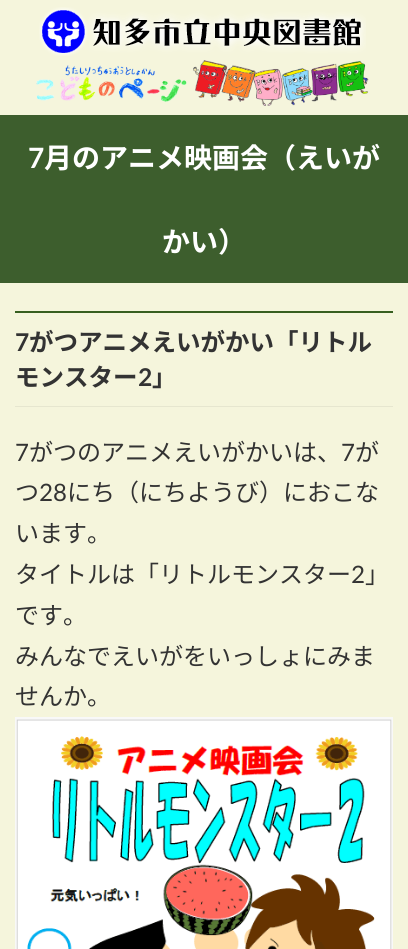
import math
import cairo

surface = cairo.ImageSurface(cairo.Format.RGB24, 408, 949)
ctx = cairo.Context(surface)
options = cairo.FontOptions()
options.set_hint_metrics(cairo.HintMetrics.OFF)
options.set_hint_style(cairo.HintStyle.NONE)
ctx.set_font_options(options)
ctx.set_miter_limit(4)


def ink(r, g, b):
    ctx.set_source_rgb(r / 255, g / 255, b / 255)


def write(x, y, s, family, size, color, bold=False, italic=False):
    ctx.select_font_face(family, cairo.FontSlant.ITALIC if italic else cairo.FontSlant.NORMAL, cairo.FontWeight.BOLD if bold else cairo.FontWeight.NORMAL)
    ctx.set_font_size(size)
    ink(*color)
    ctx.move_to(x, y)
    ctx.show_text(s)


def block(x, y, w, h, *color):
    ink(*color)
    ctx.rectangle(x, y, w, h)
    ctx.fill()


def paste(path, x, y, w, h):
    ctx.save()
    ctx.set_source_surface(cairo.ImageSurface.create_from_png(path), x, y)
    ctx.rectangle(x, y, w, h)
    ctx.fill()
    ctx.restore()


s1 = dict(family="Lato", size=28, color=(255, 255, 255), bold=True)
s2 = dict(family="Noto Sans JP", size=28, color=(255, 255, 255), bold=True)
s3 = dict(family="Lato", size=24.5, color=(51, 51, 51), bold=True)
s4 = dict(family="Noto Sans JP", size=24.5, color=(51, 51, 51), bold=True)
s5 = dict(family="Lato", size=24, color=(51, 51, 51))
s6 = dict(family="Noto Sans JP", size=24, color=(51, 51, 51))

ink(245, 245, 220)
ctx.paint()
paste("pic1.png", 39, 7, 327, 49)
paste("pic2.png", 36, 60, 333, 46)
block(0, 115, 408, 168, 61, 94, 45)
write(28, 168, "7", **s1)
write(44, 168, "月のアニメ映画会（えいが", **s2)
write(162, 252, "かい）", **s2)
block(15, 311, 378, 2, 55, 95, 32)
block(15, 406, 378, 1, 230, 230, 207)
write(15, 351, "7", **s3)
write(29, 351, "がつアニメえいがかい「リトル", **s4)
write(15, 386, "モンスター", **s4)
write(138, 386, "2", **s3)
write(152, 386, "」", **s4)
write(15, 461, "7", **s5)
write(29, 461, "がつのアニメえいがかいは、", **s6)
write(341, 461, "7", **s5)
write(355, 461, "が", **s6)
write(15, 501, "つ", **s6)
write(39, 501, "28", **s5)
write(67, 501, "にち（にちようび）におこな", **s6)
write(15, 542, "います。", **s6)
write(15, 583, "タイトルは「リトルモンスター", **s6)
write(351, 583, "2", **s5)
write(365, 583, "」", **s6)
write(15, 624, "です。", **s6)
write(15, 665, "みんなでえいがをいっしょにみま", **s6)
write(15, 705, "せんか。", **s6)
paste("pic3.png", 15, 717, 378, 232)
surface.write_to_png("screenshot.png")
